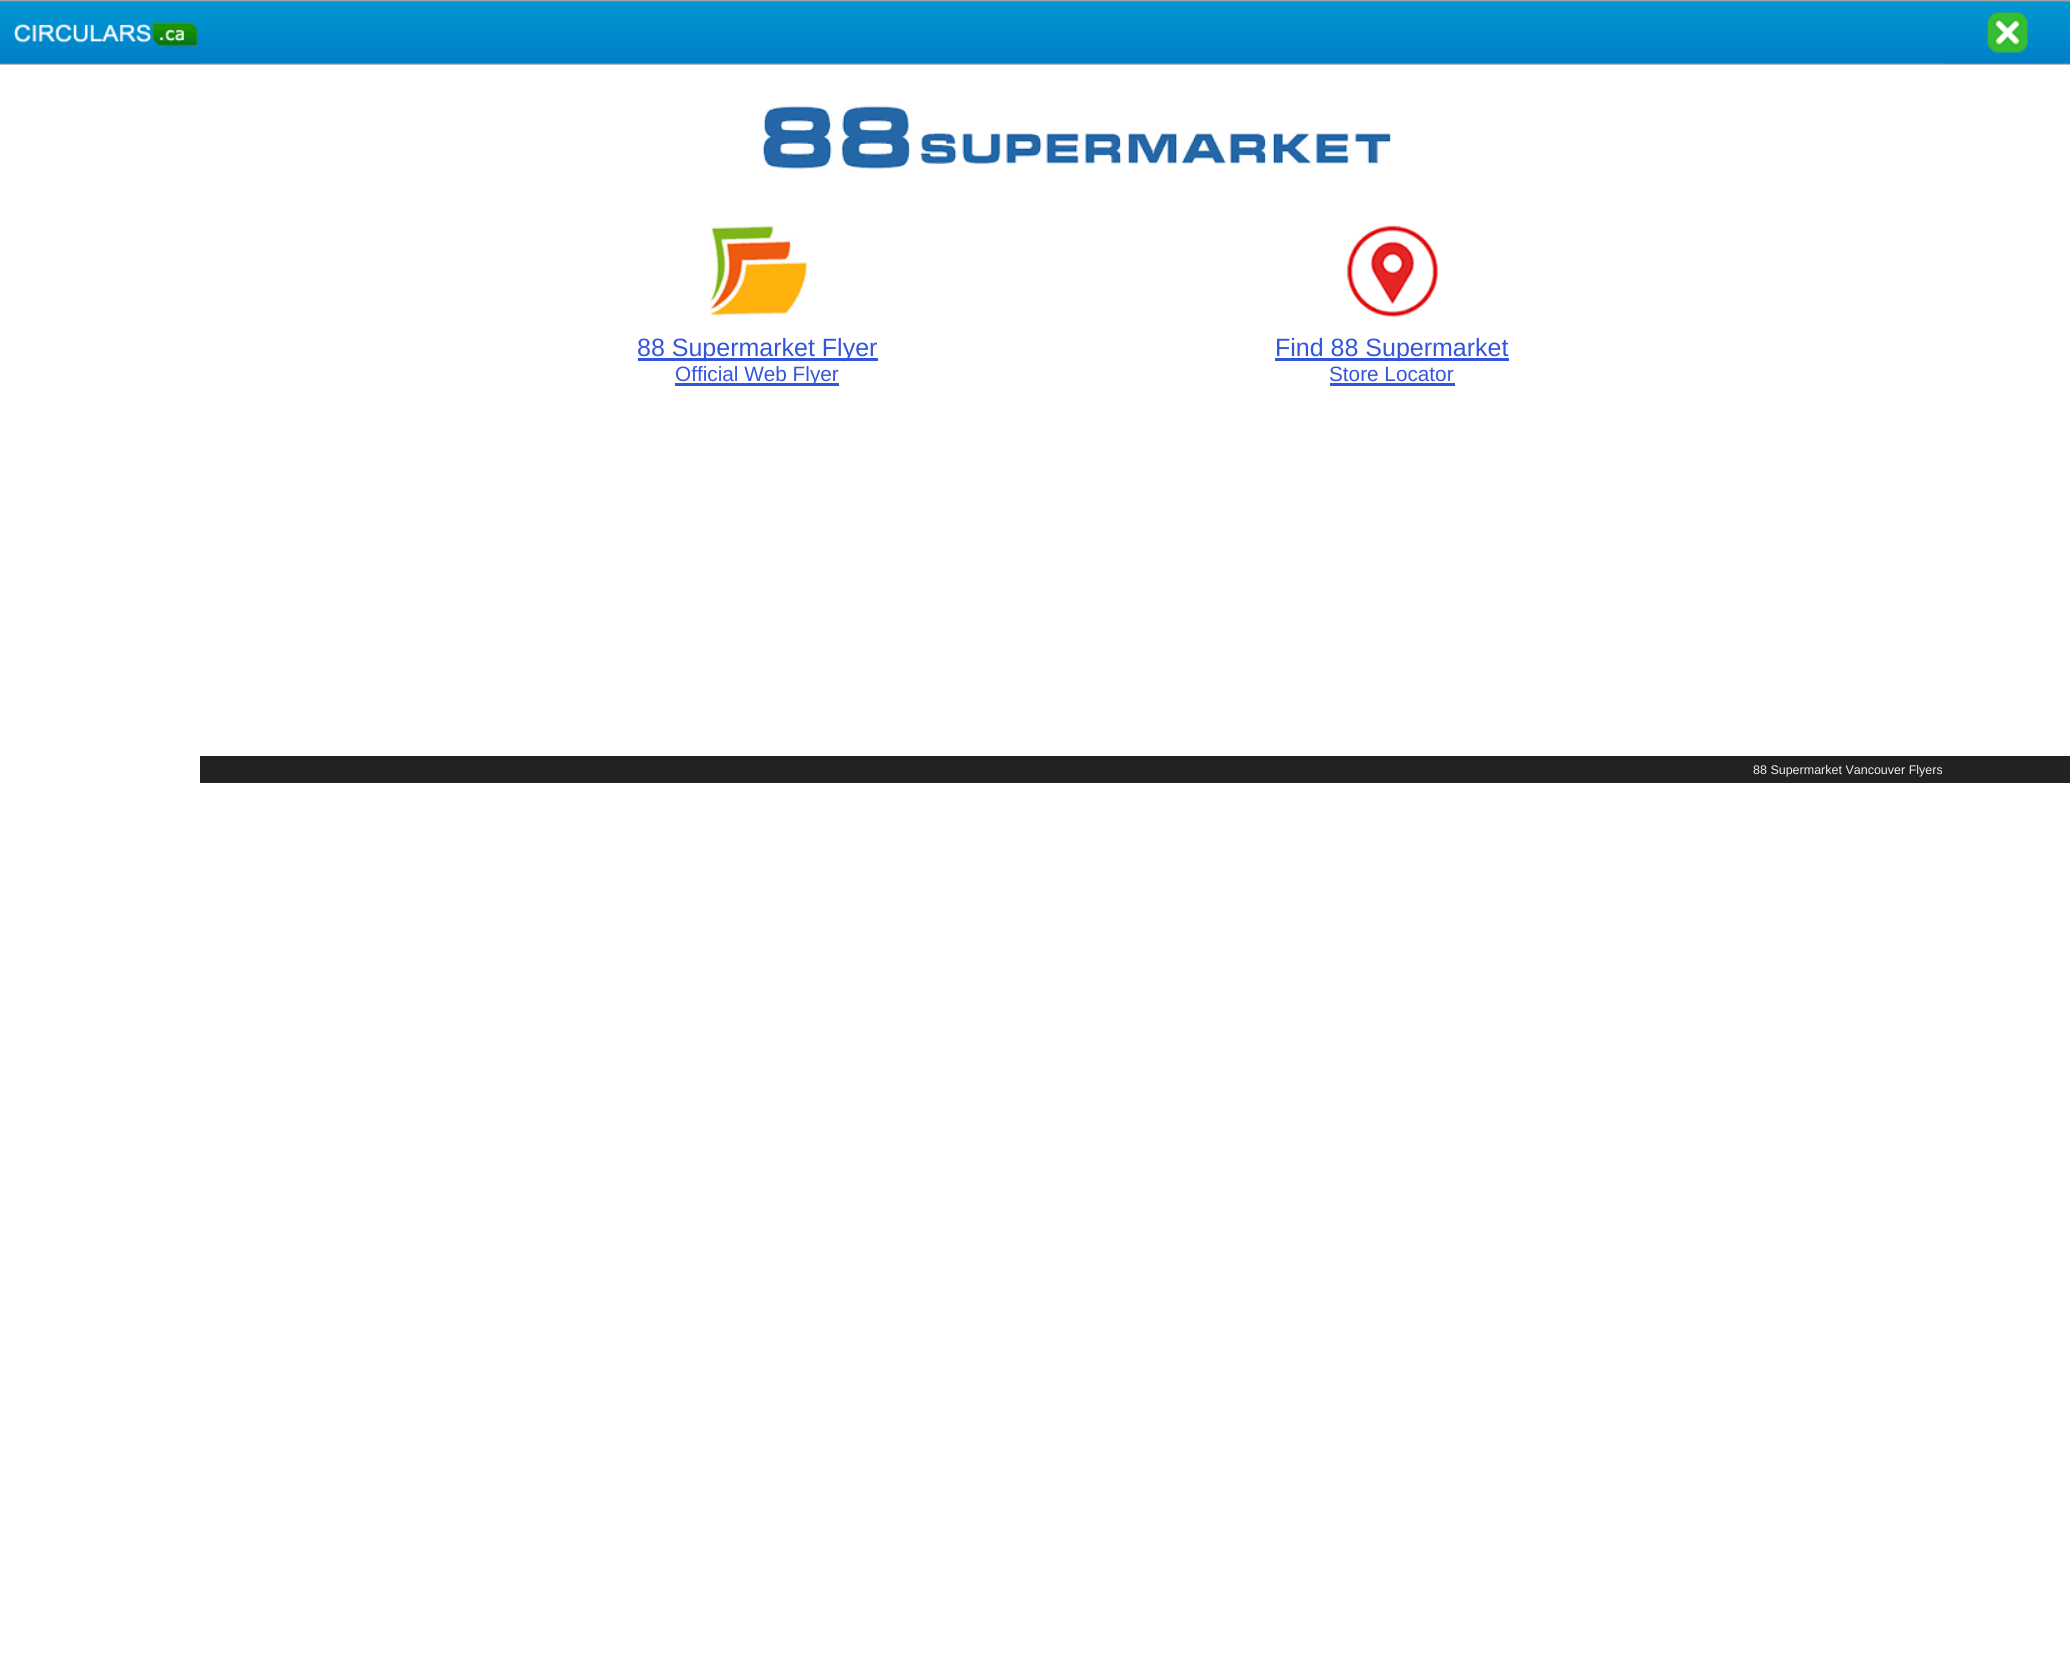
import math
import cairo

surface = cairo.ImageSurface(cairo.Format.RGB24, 2070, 1672)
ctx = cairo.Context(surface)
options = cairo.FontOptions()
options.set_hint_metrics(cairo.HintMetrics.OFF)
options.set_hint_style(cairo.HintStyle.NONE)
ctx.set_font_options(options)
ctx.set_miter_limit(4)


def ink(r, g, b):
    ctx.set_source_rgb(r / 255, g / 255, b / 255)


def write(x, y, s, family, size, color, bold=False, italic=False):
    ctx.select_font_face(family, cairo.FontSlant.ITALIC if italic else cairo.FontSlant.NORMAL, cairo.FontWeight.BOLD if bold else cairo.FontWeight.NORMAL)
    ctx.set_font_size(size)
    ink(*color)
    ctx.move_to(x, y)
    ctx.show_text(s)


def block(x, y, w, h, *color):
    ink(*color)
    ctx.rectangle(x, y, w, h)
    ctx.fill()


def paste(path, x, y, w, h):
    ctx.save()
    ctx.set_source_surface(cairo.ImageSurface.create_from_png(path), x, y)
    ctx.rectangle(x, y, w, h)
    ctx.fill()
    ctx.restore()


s1 = dict(family="Liberation Sans", size=25, color=(51, 85, 221))
s2 = dict(family="Liberation Sans", size=20.75, color=(51, 85, 221))
s3 = dict(family="Liberation Sans", size=12.5, color=(238, 238, 238))

ink(255, 255, 255)
ctx.paint()
paste("pic1.png", 0, 0, 2070, 65)
paste("pic2.png", 0, 22, 200, 42)
paste("pic3.png", 1945, 12, 125, 52)
paste("pic4.png", 763, 106, 628, 63)
paste("pic5.png", 709, 226, 99, 90)
block(638, 358, 240, 3, 51, 85, 221)
write(637, 356, "88 Supermarket Flyer", **s1)
block(675, 383, 164, 3, 51, 85, 221)
write(675, 381, "Official Web Flyer", **s2)
paste("pic6.png", 1346, 225, 93, 92)
block(1275, 358, 234, 3, 51, 85, 221)
write(1275, 356, "Find 88 Supermarket", **s1)
write(1329, 381, "Store Locator", **s2)
block(1330, 383, 125, 3, 51, 85, 221)
block(200, 756, 1870, 27, 34, 34, 34)
write(1753, 774, "88 Supermarket Vancouver Flyers", **s3)
surface.write_to_png("screenshot.png")
